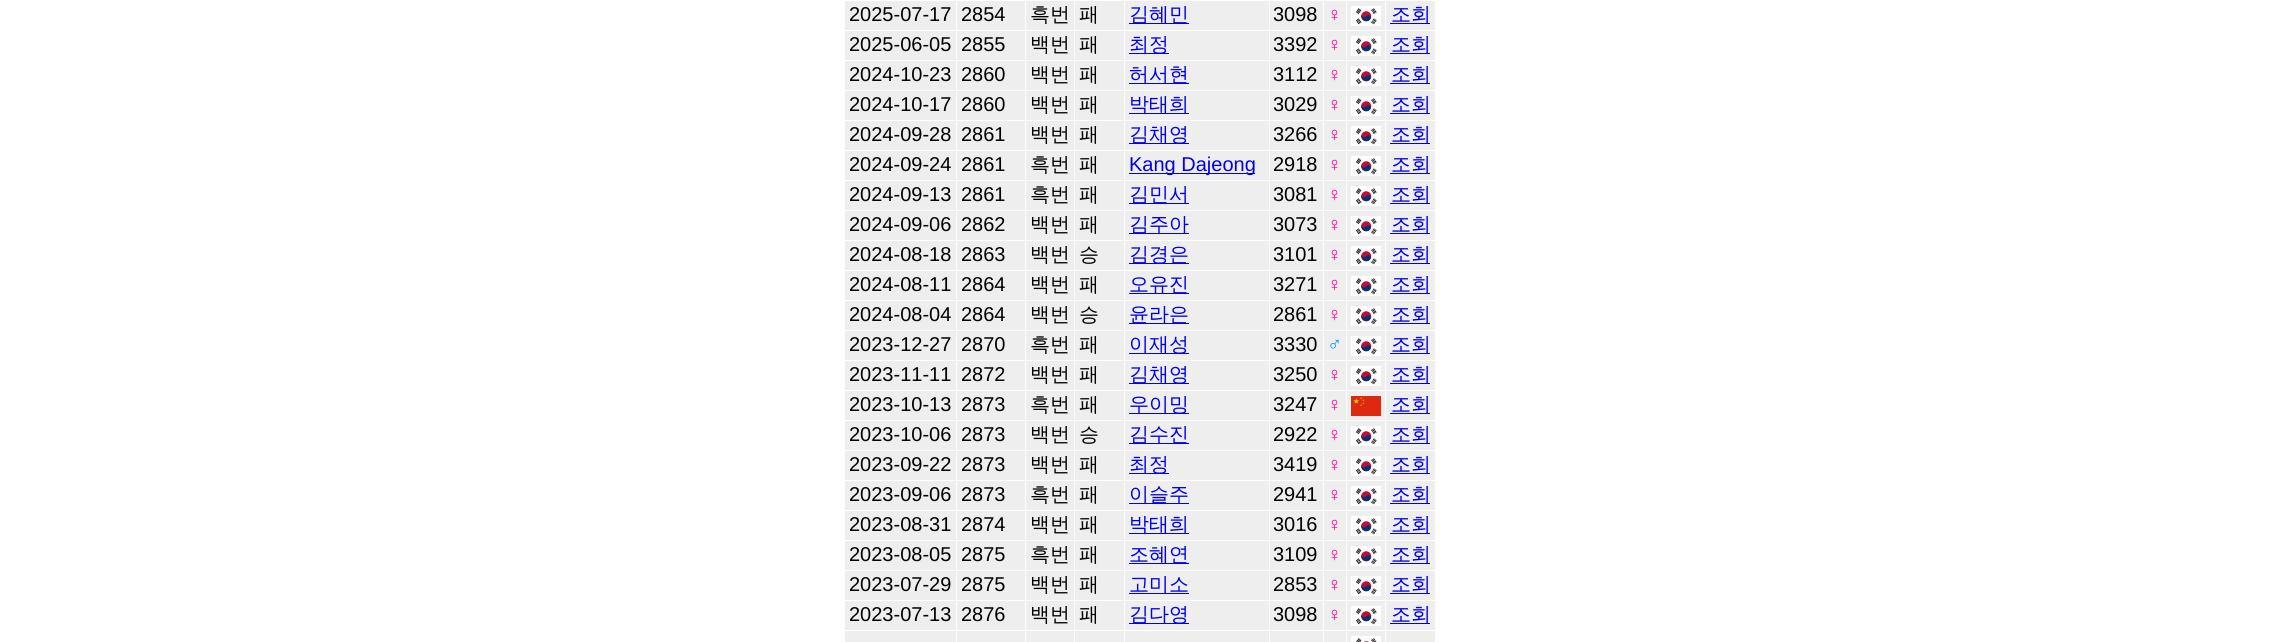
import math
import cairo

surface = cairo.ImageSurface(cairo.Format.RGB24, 2279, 642)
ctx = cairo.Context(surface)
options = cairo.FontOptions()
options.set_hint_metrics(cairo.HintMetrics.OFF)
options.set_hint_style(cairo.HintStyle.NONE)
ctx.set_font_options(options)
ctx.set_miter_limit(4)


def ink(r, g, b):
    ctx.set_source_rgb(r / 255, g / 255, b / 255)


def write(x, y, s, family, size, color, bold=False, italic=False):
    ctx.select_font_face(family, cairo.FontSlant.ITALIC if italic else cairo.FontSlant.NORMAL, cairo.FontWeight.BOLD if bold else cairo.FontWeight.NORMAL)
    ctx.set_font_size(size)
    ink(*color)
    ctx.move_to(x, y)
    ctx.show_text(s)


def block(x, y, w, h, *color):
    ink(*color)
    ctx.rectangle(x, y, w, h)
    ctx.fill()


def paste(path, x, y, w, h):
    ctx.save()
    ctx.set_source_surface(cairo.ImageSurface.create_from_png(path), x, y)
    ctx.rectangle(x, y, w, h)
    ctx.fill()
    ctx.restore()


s1 = dict(family="Liberation Sans", size=20, color=(0, 0, 0))
s2 = dict(family="WenQuanYi Zen Hei Medium", size=20, color=(0, 0, 0))
s3 = dict(family="WenQuanYi Zen Hei Medium", size=20, color=(0, 0, 238))
s4 = dict(family="Liberation Sans", size=20, color=(254, 0, 151))
s5 = dict(family="Liberation Sans", size=20, color=(0, 0, 238))
s6 = dict(family="Liberation Sans", size=20, color=(2, 149, 255))

ink(255, 255, 255)
ctx.paint()
block(845, 1, 111, 29, 238, 238, 238)
write(849, 21, "2025-07-17", **s1)
block(957, 1, 68, 29, 238, 238, 238)
write(961, 21, "2854", **s1)
block(1026, 1, 48, 29, 238, 238, 238)
write(1030, 21, "흑번", **s2)
block(1075, 1, 49, 29, 238, 238, 238)
write(1079, 21, "패", **s2)
block(1125, 1, 144, 29, 238, 238, 238)
block(1129, 23, 60, 1, 0, 0, 238)
write(1129, 21, "김혜민", **s3)
block(1270, 1, 53, 29, 238, 238, 238)
write(1273, 21, "3098", **s1)
block(1324, 1, 22, 29, 238, 238, 238)
write(1327, 21, "♀", **s4)
block(1347, 1, 38, 29, 238, 238, 238)
paste("pic1.png", 1351, 6, 30, 20)
block(1386, 1, 49, 29, 238, 238, 238)
block(1390, 23, 40, 1, 0, 0, 238)
write(1391, 21, "조회", **s3)
block(845, 31, 111, 29, 238, 238, 238)
write(849, 51, "2025-06-05", **s1)
block(957, 31, 68, 29, 238, 238, 238)
write(961, 51, "2855", **s1)
block(1026, 31, 48, 29, 238, 238, 238)
write(1030, 51, "백번", **s2)
block(1075, 31, 49, 29, 238, 238, 238)
write(1079, 51, "패", **s2)
block(1125, 31, 144, 29, 238, 238, 238)
block(1129, 53, 40, 1, 0, 0, 238)
write(1129, 51, "최정", **s3)
block(1270, 31, 53, 29, 238, 238, 238)
write(1273, 51, "3392", **s1)
block(1324, 31, 22, 29, 238, 238, 238)
write(1327, 51, "♀", **s4)
block(1347, 31, 38, 29, 238, 238, 238)
paste("pic1.png", 1351, 36, 30, 20)
block(1386, 31, 49, 29, 238, 238, 238)
block(1390, 53, 40, 1, 0, 0, 238)
write(1391, 51, "조회", **s3)
block(845, 61, 111, 29, 238, 238, 238)
write(849, 81, "2024-10-23", **s1)
block(957, 61, 68, 29, 238, 238, 238)
write(961, 81, "2860", **s1)
block(1026, 61, 48, 29, 238, 238, 238)
write(1030, 81, "백번", **s2)
block(1075, 61, 49, 29, 238, 238, 238)
write(1079, 81, "패", **s2)
block(1125, 61, 144, 29, 238, 238, 238)
block(1129, 83, 60, 1, 0, 0, 238)
write(1129, 81, "허서현", **s3)
block(1270, 61, 53, 29, 238, 238, 238)
write(1273, 81, "3112", **s1)
block(1324, 61, 22, 29, 238, 238, 238)
write(1327, 81, "♀", **s4)
block(1347, 61, 38, 29, 238, 238, 238)
paste("pic1.png", 1351, 66, 30, 20)
block(1386, 61, 49, 29, 238, 238, 238)
block(1390, 83, 40, 1, 0, 0, 238)
write(1391, 81, "조회", **s3)
block(845, 91, 111, 29, 238, 238, 238)
write(849, 111, "2024-10-17", **s1)
block(957, 91, 68, 29, 238, 238, 238)
write(961, 111, "2860", **s1)
block(1026, 91, 48, 29, 238, 238, 238)
write(1030, 111, "백번", **s2)
block(1075, 91, 49, 29, 238, 238, 238)
write(1079, 111, "패", **s2)
block(1125, 91, 144, 29, 238, 238, 238)
block(1129, 113, 60, 1, 0, 0, 238)
write(1129, 111, "박태희", **s3)
block(1270, 91, 53, 29, 238, 238, 238)
write(1273, 111, "3029", **s1)
block(1324, 91, 22, 29, 238, 238, 238)
write(1327, 111, "♀", **s4)
block(1347, 91, 38, 29, 238, 238, 238)
paste("pic1.png", 1351, 96, 30, 20)
block(1386, 91, 49, 29, 238, 238, 238)
block(1390, 113, 40, 1, 0, 0, 238)
write(1391, 111, "조회", **s3)
block(845, 121, 111, 29, 238, 238, 238)
write(849, 141, "2024-09-28", **s1)
block(957, 121, 68, 29, 238, 238, 238)
write(961, 141, "2861", **s1)
block(1026, 121, 48, 29, 238, 238, 238)
write(1030, 141, "백번", **s2)
block(1075, 121, 49, 29, 238, 238, 238)
write(1079, 141, "패", **s2)
block(1125, 121, 144, 29, 238, 238, 238)
block(1129, 143, 60, 1, 0, 0, 238)
write(1129, 141, "김채영", **s3)
block(1270, 121, 53, 29, 238, 238, 238)
write(1273, 141, "3266", **s1)
block(1324, 121, 22, 29, 238, 238, 238)
write(1327, 141, "♀", **s4)
block(1347, 121, 38, 29, 238, 238, 238)
paste("pic1.png", 1351, 126, 30, 20)
block(1386, 121, 49, 29, 238, 238, 238)
block(1390, 143, 40, 1, 0, 0, 238)
write(1391, 141, "조회", **s3)
block(845, 151, 111, 29, 238, 238, 238)
write(849, 171, "2024-09-24", **s1)
block(957, 151, 68, 29, 238, 238, 238)
write(961, 171, "2861", **s1)
block(1026, 151, 48, 29, 238, 238, 238)
write(1030, 171, "흑번", **s2)
block(1075, 151, 49, 29, 238, 238, 238)
write(1079, 171, "패", **s2)
block(1125, 151, 144, 29, 238, 238, 238)
block(1129, 173, 126, 1, 0, 0, 238)
write(1129, 171, "Kang Dajeong", **s5)
block(1270, 151, 53, 29, 238, 238, 238)
write(1273, 171, "2918", **s1)
block(1324, 151, 22, 29, 238, 238, 238)
write(1327, 171, "♀", **s4)
block(1347, 151, 38, 29, 238, 238, 238)
paste("pic1.png", 1351, 156, 30, 20)
block(1386, 151, 49, 29, 238, 238, 238)
block(1390, 173, 40, 1, 0, 0, 238)
write(1391, 171, "조회", **s3)
block(845, 181, 111, 29, 238, 238, 238)
write(849, 201, "2024-09-13", **s1)
block(957, 181, 68, 29, 238, 238, 238)
write(961, 201, "2861", **s1)
block(1026, 181, 48, 29, 238, 238, 238)
write(1030, 201, "흑번", **s2)
block(1075, 181, 49, 29, 238, 238, 238)
write(1079, 201, "패", **s2)
block(1125, 181, 144, 29, 238, 238, 238)
block(1129, 203, 60, 1, 0, 0, 238)
write(1129, 201, "김민서", **s3)
block(1270, 181, 53, 29, 238, 238, 238)
write(1273, 201, "3081", **s1)
block(1324, 181, 22, 29, 238, 238, 238)
write(1327, 201, "♀", **s4)
block(1347, 181, 38, 29, 238, 238, 238)
paste("pic1.png", 1351, 186, 30, 20)
block(1386, 181, 49, 29, 238, 238, 238)
block(1390, 203, 40, 1, 0, 0, 238)
write(1391, 201, "조회", **s3)
block(845, 211, 111, 29, 238, 238, 238)
write(849, 231, "2024-09-06", **s1)
block(957, 211, 68, 29, 238, 238, 238)
write(961, 231, "2862", **s1)
block(1026, 211, 48, 29, 238, 238, 238)
write(1030, 231, "백번", **s2)
block(1075, 211, 49, 29, 238, 238, 238)
write(1079, 231, "패", **s2)
block(1125, 211, 144, 29, 238, 238, 238)
block(1129, 233, 60, 1, 0, 0, 238)
write(1129, 231, "김주아", **s3)
block(1270, 211, 53, 29, 238, 238, 238)
write(1273, 231, "3073", **s1)
block(1324, 211, 22, 29, 238, 238, 238)
write(1327, 231, "♀", **s4)
block(1347, 211, 38, 29, 238, 238, 238)
paste("pic1.png", 1351, 216, 30, 20)
block(1386, 211, 49, 29, 238, 238, 238)
block(1390, 233, 40, 1, 0, 0, 238)
write(1391, 231, "조회", **s3)
block(845, 241, 111, 29, 238, 238, 238)
write(849, 261, "2024-08-18", **s1)
block(957, 241, 68, 29, 238, 238, 238)
write(961, 261, "2863", **s1)
block(1026, 241, 48, 29, 238, 238, 238)
write(1030, 261, "백번", **s2)
block(1075, 241, 49, 29, 238, 238, 238)
write(1079, 261, "승", **s2)
block(1125, 241, 144, 29, 238, 238, 238)
block(1129, 263, 60, 1, 0, 0, 238)
write(1129, 261, "김경은", **s3)
block(1270, 241, 53, 29, 238, 238, 238)
write(1273, 261, "3101", **s1)
block(1324, 241, 22, 29, 238, 238, 238)
write(1327, 261, "♀", **s4)
block(1347, 241, 38, 29, 238, 238, 238)
paste("pic1.png", 1351, 246, 30, 20)
block(1386, 241, 49, 29, 238, 238, 238)
block(1390, 263, 40, 1, 0, 0, 238)
write(1391, 261, "조회", **s3)
block(845, 271, 111, 29, 238, 238, 238)
write(849, 291, "2024-08-11", **s1)
block(957, 271, 68, 29, 238, 238, 238)
write(961, 291, "2864", **s1)
block(1026, 271, 48, 29, 238, 238, 238)
write(1030, 291, "백번", **s2)
block(1075, 271, 49, 29, 238, 238, 238)
write(1079, 291, "패", **s2)
block(1125, 271, 144, 29, 238, 238, 238)
block(1129, 293, 60, 1, 0, 0, 238)
write(1129, 291, "오유진", **s3)
block(1270, 271, 53, 29, 238, 238, 238)
write(1273, 291, "3271", **s1)
block(1324, 271, 22, 29, 238, 238, 238)
write(1327, 291, "♀", **s4)
block(1347, 271, 38, 29, 238, 238, 238)
paste("pic1.png", 1351, 276, 30, 20)
block(1386, 271, 49, 29, 238, 238, 238)
block(1390, 293, 40, 1, 0, 0, 238)
write(1391, 291, "조회", **s3)
block(845, 301, 111, 29, 238, 238, 238)
write(849, 321, "2024-08-04", **s1)
block(957, 301, 68, 29, 238, 238, 238)
write(961, 321, "2864", **s1)
block(1026, 301, 48, 29, 238, 238, 238)
write(1030, 321, "백번", **s2)
block(1075, 301, 49, 29, 238, 238, 238)
write(1079, 321, "승", **s2)
block(1125, 301, 144, 29, 238, 238, 238)
block(1129, 323, 60, 1, 0, 0, 238)
write(1129, 321, "윤라은", **s3)
block(1270, 301, 53, 29, 238, 238, 238)
write(1273, 321, "2861", **s1)
block(1324, 301, 22, 29, 238, 238, 238)
write(1327, 321, "♀", **s4)
block(1347, 301, 38, 29, 238, 238, 238)
paste("pic1.png", 1351, 306, 30, 20)
block(1386, 301, 49, 29, 238, 238, 238)
block(1390, 323, 40, 1, 0, 0, 238)
write(1391, 321, "조회", **s3)
block(845, 331, 111, 29, 238, 238, 238)
write(849, 351, "2023-12-27", **s1)
block(957, 331, 68, 29, 238, 238, 238)
write(961, 351, "2870", **s1)
block(1026, 331, 48, 29, 238, 238, 238)
write(1030, 351, "흑번", **s2)
block(1075, 331, 49, 29, 238, 238, 238)
write(1079, 351, "패", **s2)
block(1125, 331, 144, 29, 238, 238, 238)
block(1129, 353, 60, 1, 0, 0, 238)
write(1129, 351, "이재성", **s3)
block(1270, 331, 53, 29, 238, 238, 238)
write(1273, 351, "3330", **s1)
block(1324, 331, 22, 29, 238, 238, 238)
write(1327, 351, "♂", **s6)
block(1347, 331, 38, 29, 238, 238, 238)
paste("pic1.png", 1351, 336, 30, 20)
block(1386, 331, 49, 29, 238, 238, 238)
block(1390, 353, 40, 1, 0, 0, 238)
write(1391, 351, "조회", **s3)
block(845, 361, 111, 29, 238, 238, 238)
write(849, 381, "2023-11-11", **s1)
block(957, 361, 68, 29, 238, 238, 238)
write(961, 381, "2872", **s1)
block(1026, 361, 48, 29, 238, 238, 238)
write(1030, 381, "백번", **s2)
block(1075, 361, 49, 29, 238, 238, 238)
write(1079, 381, "패", **s2)
block(1125, 361, 144, 29, 238, 238, 238)
block(1129, 383, 60, 1, 0, 0, 238)
write(1129, 381, "김채영", **s3)
block(1270, 361, 53, 29, 238, 238, 238)
write(1273, 381, "3250", **s1)
block(1324, 361, 22, 29, 238, 238, 238)
write(1327, 381, "♀", **s4)
block(1347, 361, 38, 29, 238, 238, 238)
paste("pic1.png", 1351, 366, 30, 20)
block(1386, 361, 49, 29, 238, 238, 238)
block(1390, 383, 40, 1, 0, 0, 238)
write(1391, 381, "조회", **s3)
block(845, 391, 111, 29, 238, 238, 238)
write(849, 411, "2023-10-13", **s1)
block(957, 391, 68, 29, 238, 238, 238)
write(961, 411, "2873", **s1)
block(1026, 391, 48, 29, 238, 238, 238)
write(1030, 411, "흑번", **s2)
block(1075, 391, 49, 29, 238, 238, 238)
write(1079, 411, "패", **s2)
block(1125, 391, 144, 29, 238, 238, 238)
block(1129, 413, 60, 1, 0, 0, 238)
write(1129, 411, "우이밍", **s3)
block(1270, 391, 53, 29, 238, 238, 238)
write(1273, 411, "3247", **s1)
block(1324, 391, 22, 29, 238, 238, 238)
write(1327, 411, "♀", **s4)
block(1347, 391, 38, 29, 238, 238, 238)
paste("pic2.png", 1351, 396, 30, 20)
block(1386, 391, 49, 29, 238, 238, 238)
block(1390, 413, 40, 1, 0, 0, 238)
write(1391, 411, "조회", **s3)
block(845, 421, 111, 29, 238, 238, 238)
write(849, 441, "2023-10-06", **s1)
block(957, 421, 68, 29, 238, 238, 238)
write(961, 441, "2873", **s1)
block(1026, 421, 48, 29, 238, 238, 238)
write(1030, 441, "백번", **s2)
block(1075, 421, 49, 29, 238, 238, 238)
write(1079, 441, "승", **s2)
block(1125, 421, 144, 29, 238, 238, 238)
block(1129, 443, 60, 1, 0, 0, 238)
write(1129, 441, "김수진", **s3)
block(1270, 421, 53, 29, 238, 238, 238)
write(1273, 441, "2922", **s1)
block(1324, 421, 22, 29, 238, 238, 238)
write(1327, 441, "♀", **s4)
block(1347, 421, 38, 29, 238, 238, 238)
paste("pic1.png", 1351, 426, 30, 20)
block(1386, 421, 49, 29, 238, 238, 238)
block(1390, 443, 40, 1, 0, 0, 238)
write(1391, 441, "조회", **s3)
block(845, 451, 111, 29, 238, 238, 238)
write(849, 471, "2023-09-22", **s1)
block(957, 451, 68, 29, 238, 238, 238)
write(961, 471, "2873", **s1)
block(1026, 451, 48, 29, 238, 238, 238)
write(1030, 471, "백번", **s2)
block(1075, 451, 49, 29, 238, 238, 238)
write(1079, 471, "패", **s2)
block(1125, 451, 144, 29, 238, 238, 238)
block(1129, 473, 40, 1, 0, 0, 238)
write(1129, 471, "최정", **s3)
block(1270, 451, 53, 29, 238, 238, 238)
write(1273, 471, "3419", **s1)
block(1324, 451, 22, 29, 238, 238, 238)
write(1327, 471, "♀", **s4)
block(1347, 451, 38, 29, 238, 238, 238)
paste("pic1.png", 1351, 456, 30, 20)
block(1386, 451, 49, 29, 238, 238, 238)
block(1390, 473, 40, 1, 0, 0, 238)
write(1391, 471, "조회", **s3)
block(845, 481, 111, 29, 238, 238, 238)
write(849, 501, "2023-09-06", **s1)
block(957, 481, 68, 29, 238, 238, 238)
write(961, 501, "2873", **s1)
block(1026, 481, 48, 29, 238, 238, 238)
write(1030, 501, "흑번", **s2)
block(1075, 481, 49, 29, 238, 238, 238)
write(1079, 501, "패", **s2)
block(1125, 481, 144, 29, 238, 238, 238)
block(1129, 503, 60, 1, 0, 0, 238)
write(1129, 501, "이슬주", **s3)
block(1270, 481, 53, 29, 238, 238, 238)
write(1273, 501, "2941", **s1)
block(1324, 481, 22, 29, 238, 238, 238)
write(1327, 501, "♀", **s4)
block(1347, 481, 38, 29, 238, 238, 238)
paste("pic1.png", 1351, 486, 30, 20)
block(1386, 481, 49, 29, 238, 238, 238)
block(1390, 503, 40, 1, 0, 0, 238)
write(1391, 501, "조회", **s3)
block(845, 511, 111, 29, 238, 238, 238)
write(849, 531, "2023-08-31", **s1)
block(957, 511, 68, 29, 238, 238, 238)
write(961, 531, "2874", **s1)
block(1026, 511, 48, 29, 238, 238, 238)
write(1030, 531, "백번", **s2)
block(1075, 511, 49, 29, 238, 238, 238)
write(1079, 531, "패", **s2)
block(1125, 511, 144, 29, 238, 238, 238)
block(1129, 533, 60, 1, 0, 0, 238)
write(1129, 531, "박태희", **s3)
block(1270, 511, 53, 29, 238, 238, 238)
write(1273, 531, "3016", **s1)
block(1324, 511, 22, 29, 238, 238, 238)
write(1327, 531, "♀", **s4)
block(1347, 511, 38, 29, 238, 238, 238)
paste("pic1.png", 1351, 516, 30, 20)
block(1386, 511, 49, 29, 238, 238, 238)
block(1390, 533, 40, 1, 0, 0, 238)
write(1391, 531, "조회", **s3)
block(845, 541, 111, 29, 238, 238, 238)
write(849, 561, "2023-08-05", **s1)
block(957, 541, 68, 29, 238, 238, 238)
write(961, 561, "2875", **s1)
block(1026, 541, 48, 29, 238, 238, 238)
write(1030, 561, "흑번", **s2)
block(1075, 541, 49, 29, 238, 238, 238)
write(1079, 561, "패", **s2)
block(1125, 541, 144, 29, 238, 238, 238)
block(1129, 563, 60, 1, 0, 0, 238)
write(1129, 561, "조혜연", **s3)
block(1270, 541, 53, 29, 238, 238, 238)
write(1273, 561, "3109", **s1)
block(1324, 541, 22, 29, 238, 238, 238)
write(1327, 561, "♀", **s4)
block(1347, 541, 38, 29, 238, 238, 238)
paste("pic1.png", 1351, 546, 30, 20)
block(1386, 541, 49, 29, 238, 238, 238)
block(1390, 563, 40, 1, 0, 0, 238)
write(1391, 561, "조회", **s3)
block(845, 571, 111, 29, 238, 238, 238)
write(849, 591, "2023-07-29", **s1)
block(957, 571, 68, 29, 238, 238, 238)
write(961, 591, "2875", **s1)
block(1026, 571, 48, 29, 238, 238, 238)
write(1030, 591, "백번", **s2)
block(1075, 571, 49, 29, 238, 238, 238)
write(1079, 591, "패", **s2)
block(1125, 571, 144, 29, 238, 238, 238)
block(1129, 593, 60, 1, 0, 0, 238)
write(1129, 591, "고미소", **s3)
block(1270, 571, 53, 29, 238, 238, 238)
write(1273, 591, "2853", **s1)
block(1324, 571, 22, 29, 238, 238, 238)
write(1327, 591, "♀", **s4)
block(1347, 571, 38, 29, 238, 238, 238)
paste("pic1.png", 1351, 576, 30, 20)
block(1386, 571, 49, 29, 238, 238, 238)
block(1390, 593, 40, 1, 0, 0, 238)
write(1391, 591, "조회", **s3)
block(845, 601, 111, 29, 238, 238, 238)
write(849, 621, "2023-07-13", **s1)
block(957, 601, 68, 29, 238, 238, 238)
write(961, 621, "2876", **s1)
block(1026, 601, 48, 29, 238, 238, 238)
write(1030, 621, "백번", **s2)
block(1075, 601, 49, 29, 238, 238, 238)
write(1079, 621, "패", **s2)
block(1125, 601, 144, 29, 238, 238, 238)
block(1129, 623, 60, 1, 0, 0, 238)
write(1129, 621, "김다영", **s3)
block(1270, 601, 53, 29, 238, 238, 238)
write(1273, 621, "3098", **s1)
block(1324, 601, 22, 29, 238, 238, 238)
write(1327, 621, "♀", **s4)
block(1347, 601, 38, 29, 238, 238, 238)
paste("pic1.png", 1351, 606, 30, 20)
block(1386, 601, 49, 29, 238, 238, 238)
block(1390, 623, 40, 1, 0, 0, 238)
write(1391, 621, "조회", **s3)
block(845, 631, 111, 11, 238, 238, 238)
block(957, 631, 68, 11, 238, 238, 238)
block(1026, 631, 48, 11, 238, 238, 238)
block(1075, 631, 49, 11, 238, 238, 238)
block(1125, 631, 144, 11, 238, 238, 238)
block(1270, 631, 53, 11, 238, 238, 238)
block(1324, 631, 22, 11, 238, 238, 238)
block(1347, 631, 38, 11, 238, 238, 238)
paste("pic3.png", 1351, 636, 30, 6)
block(1386, 631, 49, 11, 238, 238, 238)
surface.write_to_png("screenshot.png")
